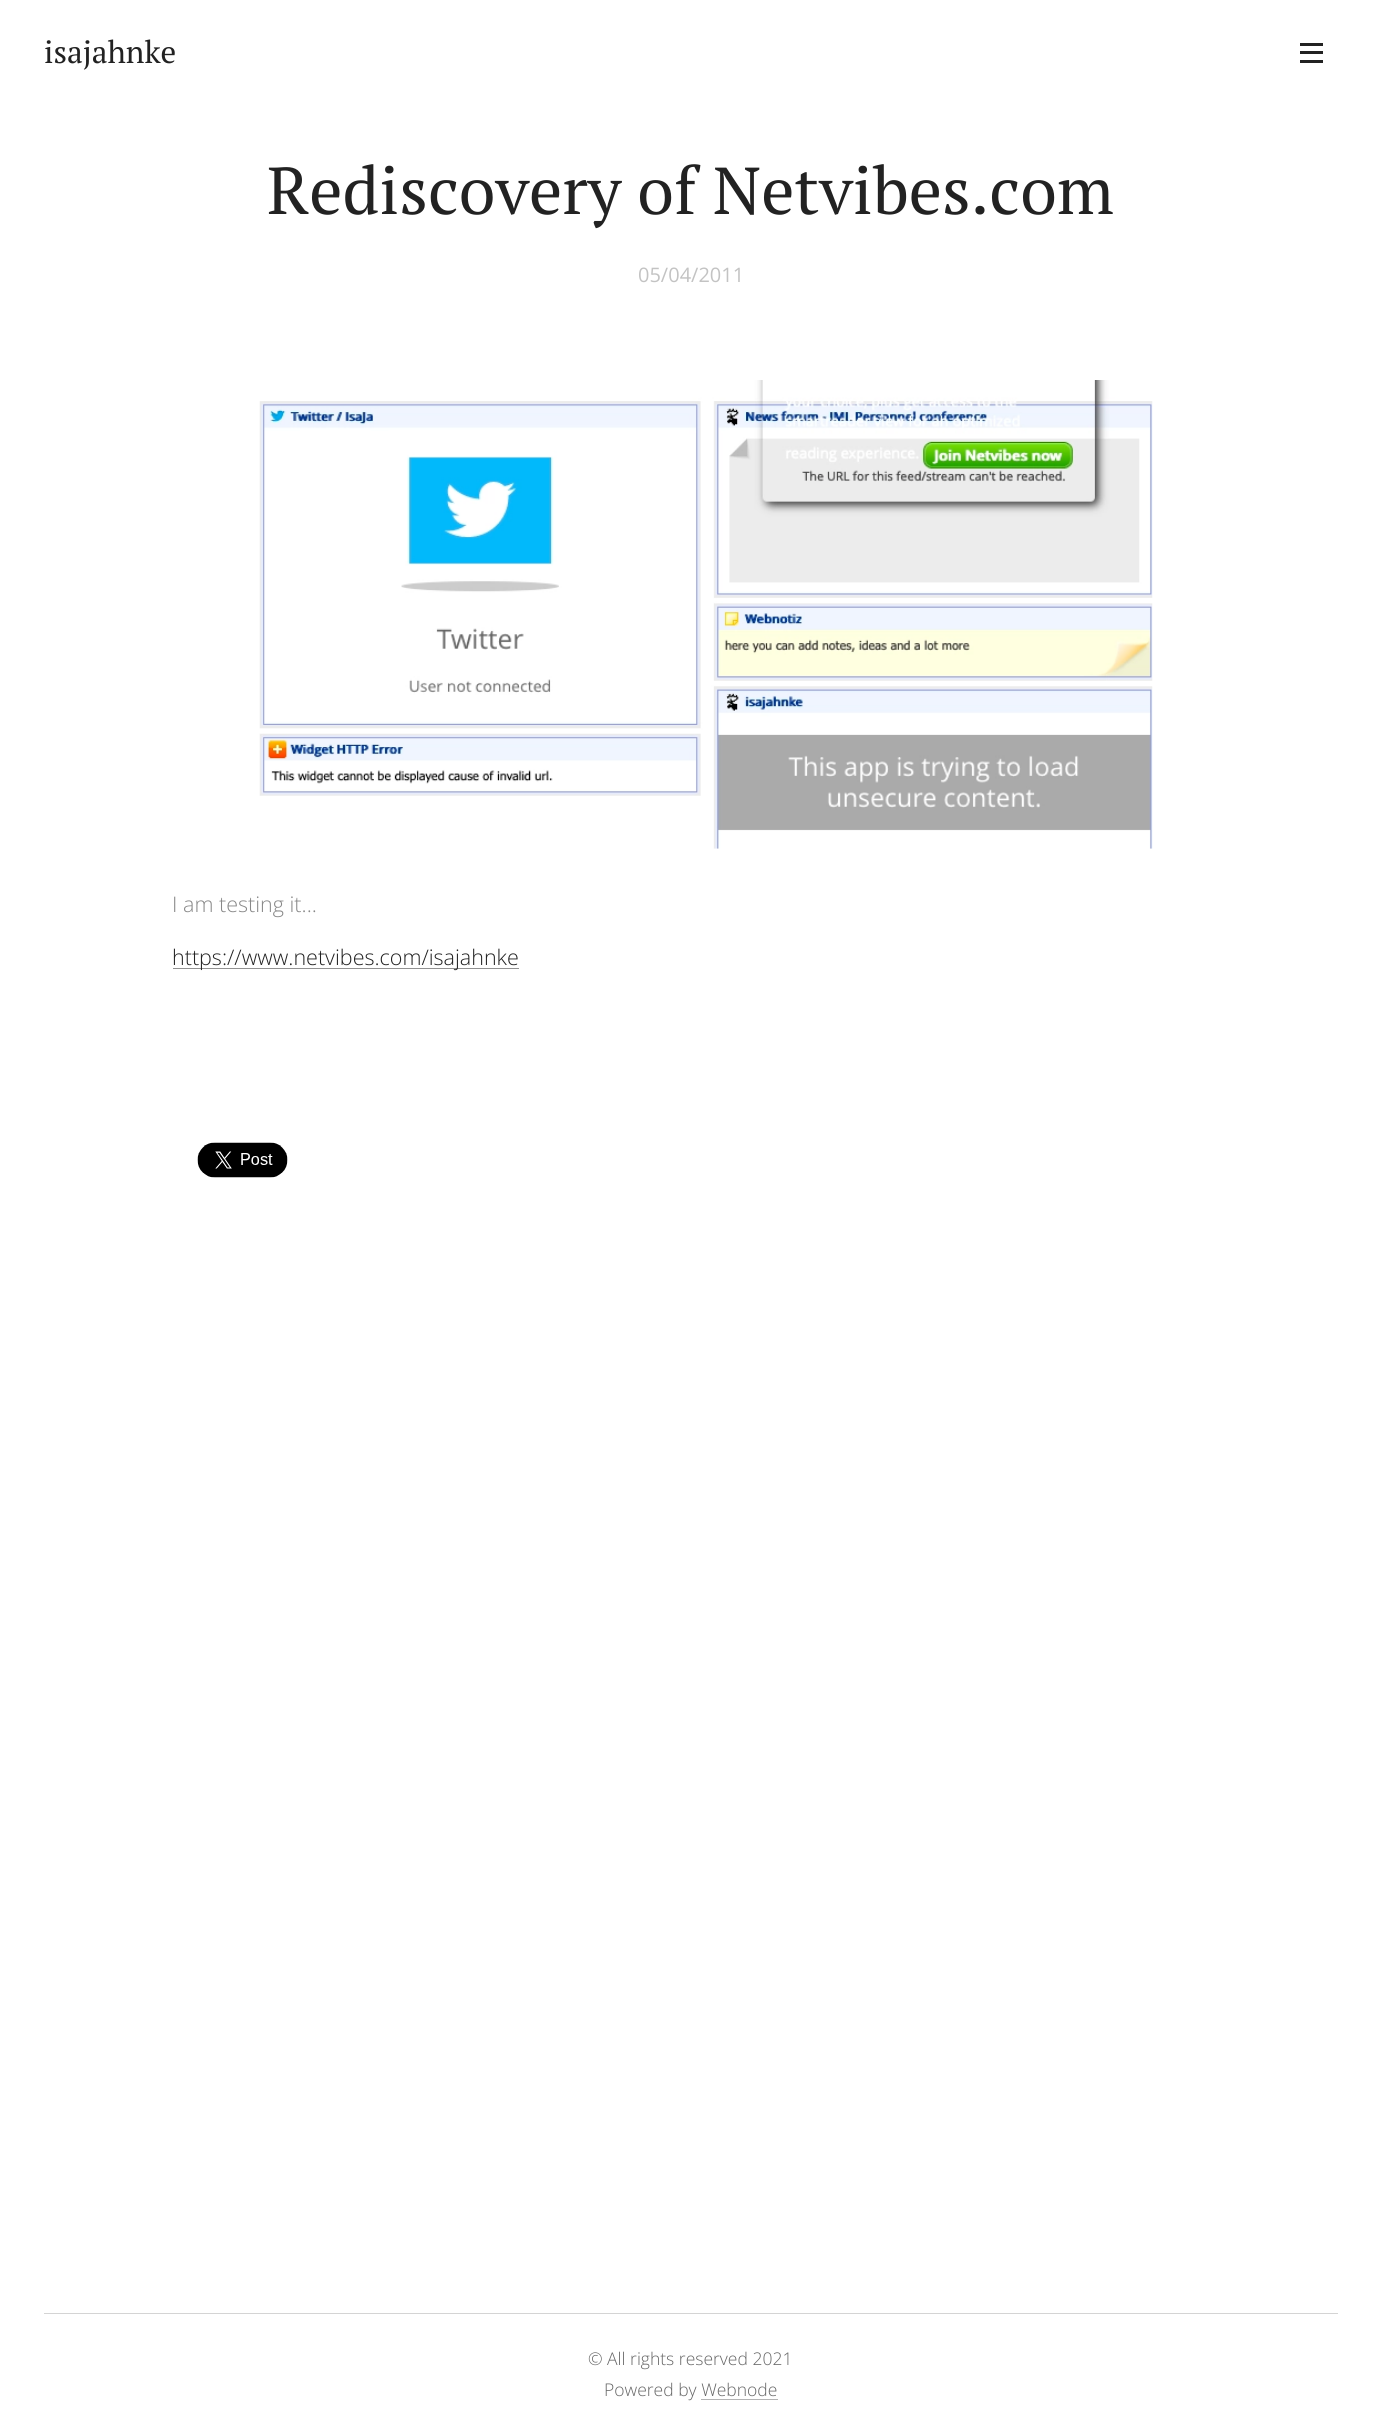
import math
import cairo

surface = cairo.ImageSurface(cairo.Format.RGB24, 1381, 2436)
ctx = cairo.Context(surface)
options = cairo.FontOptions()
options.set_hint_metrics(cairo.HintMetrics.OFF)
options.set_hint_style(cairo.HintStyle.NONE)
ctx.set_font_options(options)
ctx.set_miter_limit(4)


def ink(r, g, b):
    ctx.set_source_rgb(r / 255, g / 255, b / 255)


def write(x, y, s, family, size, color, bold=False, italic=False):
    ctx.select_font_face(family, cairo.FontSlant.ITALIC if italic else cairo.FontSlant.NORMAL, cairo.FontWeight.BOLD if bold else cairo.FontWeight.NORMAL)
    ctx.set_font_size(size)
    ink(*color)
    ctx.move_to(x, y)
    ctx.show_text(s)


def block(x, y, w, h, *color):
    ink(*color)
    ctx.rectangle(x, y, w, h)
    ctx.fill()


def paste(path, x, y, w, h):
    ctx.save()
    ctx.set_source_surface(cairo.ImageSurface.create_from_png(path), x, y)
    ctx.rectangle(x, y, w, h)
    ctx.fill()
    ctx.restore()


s1 = dict(family="PT Serif", size=31.25, color=(34, 34, 34))
s2 = dict(family="PT Serif", size=66.25, color=(34, 34, 34))
s3 = dict(family="Open Sans", size=20, color=(195, 195, 195))
s4 = dict(family="Open Sans Light", size=21.5, color=(136, 136, 136))
s5 = dict(family="Open Sans Light", size=21.5, color=(34, 34, 34))
s6 = dict(family="Open Sans Light", size=17.5, color=(102, 102, 102))

ink(255, 255, 255)
ctx.paint()
write(44, 63, "isajahnke", **s1)
block(1300, 51, 23, 3, 34, 34, 34)
block(1300, 43, 23, 3, 34, 34, 34)
block(1300, 60, 23, 3, 34, 34, 34)
write(267, 214, "Rediscovery of Netvibes.com", **s2)
write(638, 282, "05/04/2011", **s3)
paste("pic1.png", 259, 380, 894, 469)
write(172, 912, "I am testing it...", **s4)
block(173, 968, 346, 1, 145, 145, 145)
write(172, 965, "https://www.netvibes.com/isajahnke", **s5)
paste("pic2.png", 197, 1142, 91, 36)
block(44, 2313, 1294, 1, 212, 212, 212)
write(588, 2365, "© All rights reserved 2021", **s6)
write(604, 2396, "Powered by Webnode", **s6)
block(701, 2399, 77, 1, 179, 179, 179)
surface.write_to_png("screenshot.png")
